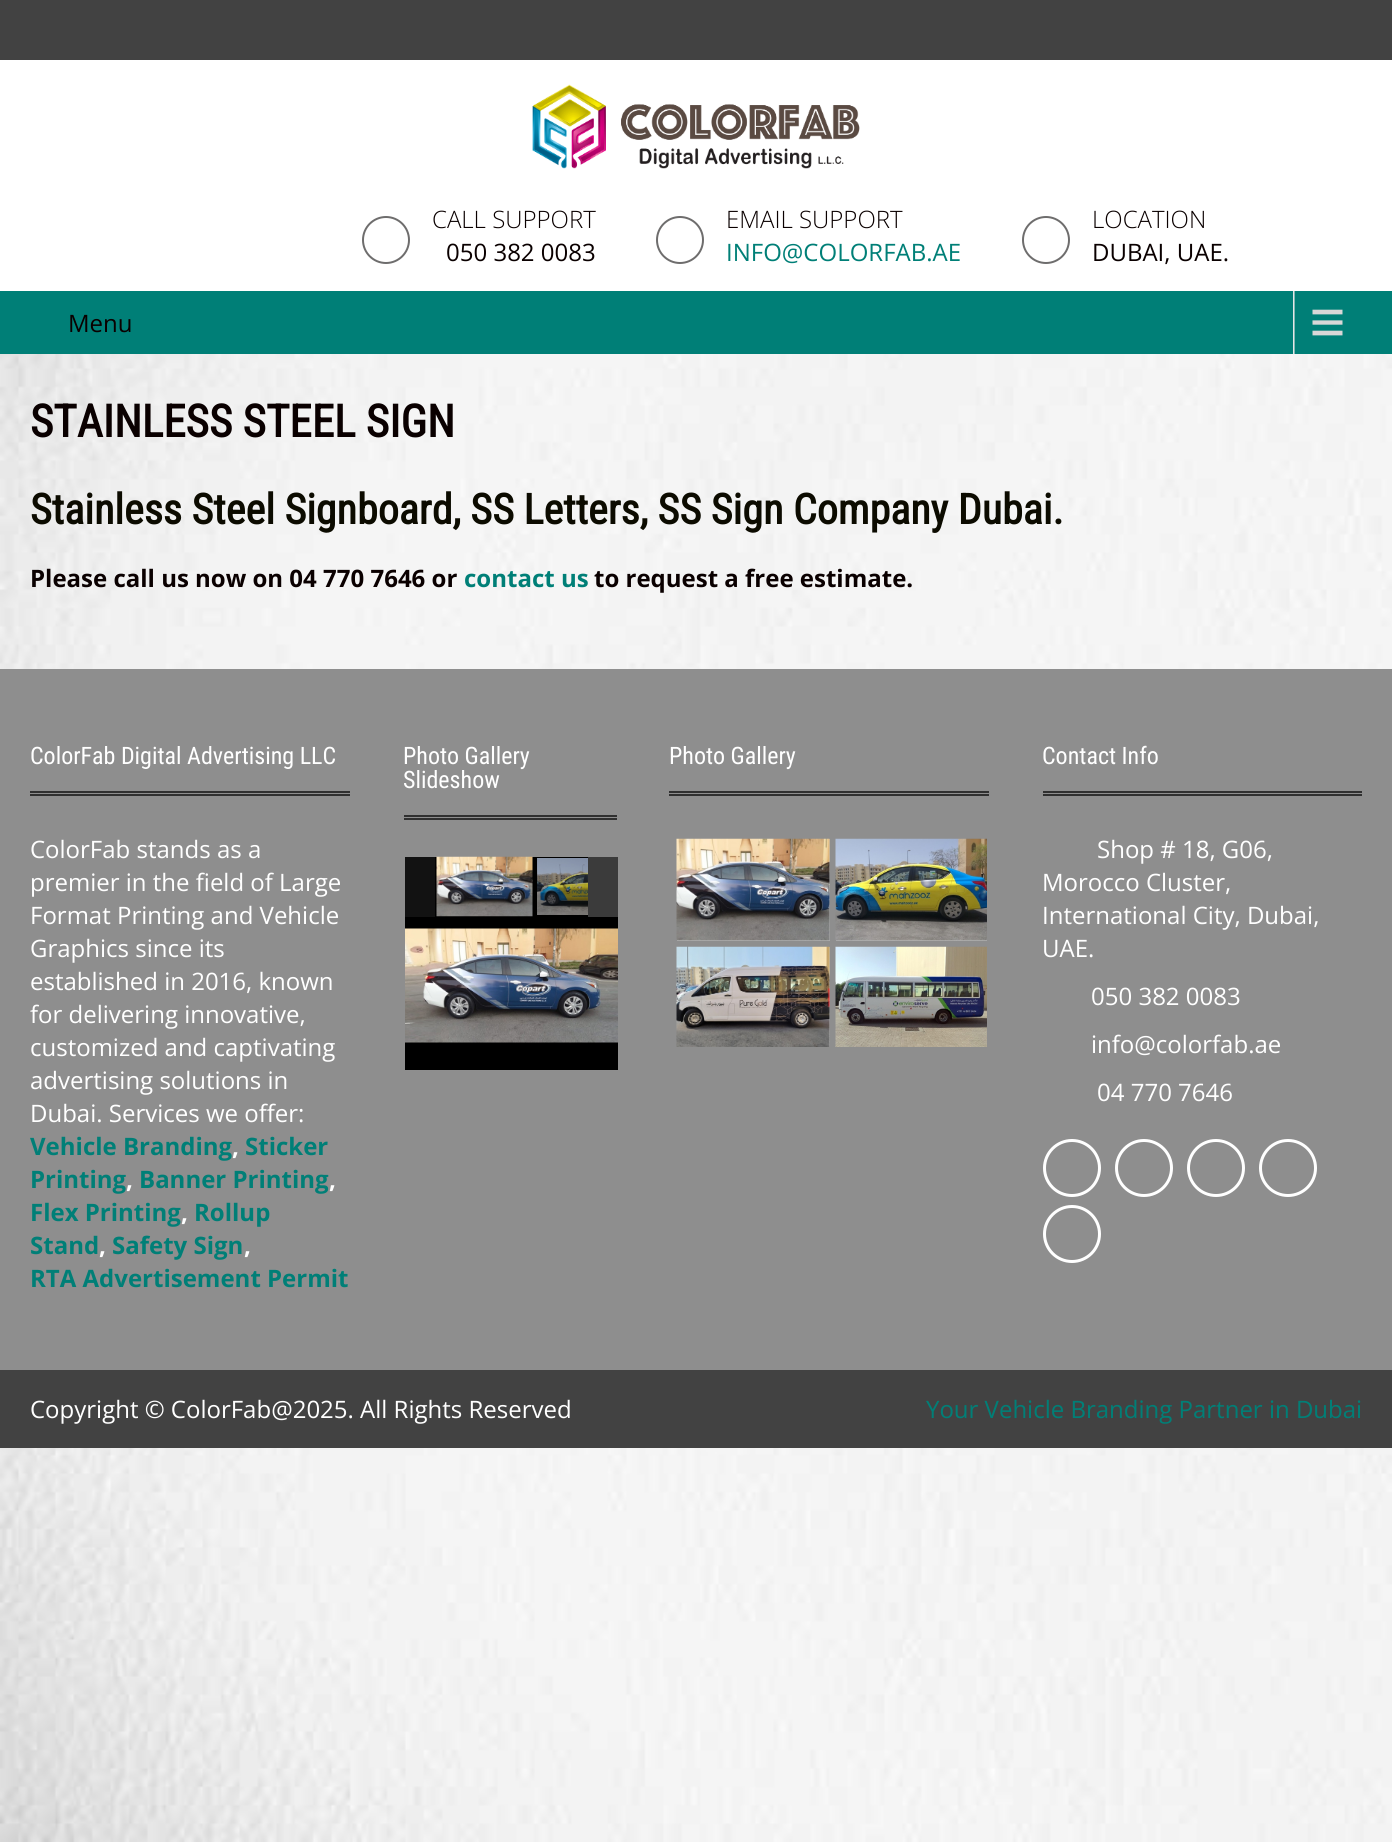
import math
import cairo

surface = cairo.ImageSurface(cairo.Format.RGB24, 1392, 1842)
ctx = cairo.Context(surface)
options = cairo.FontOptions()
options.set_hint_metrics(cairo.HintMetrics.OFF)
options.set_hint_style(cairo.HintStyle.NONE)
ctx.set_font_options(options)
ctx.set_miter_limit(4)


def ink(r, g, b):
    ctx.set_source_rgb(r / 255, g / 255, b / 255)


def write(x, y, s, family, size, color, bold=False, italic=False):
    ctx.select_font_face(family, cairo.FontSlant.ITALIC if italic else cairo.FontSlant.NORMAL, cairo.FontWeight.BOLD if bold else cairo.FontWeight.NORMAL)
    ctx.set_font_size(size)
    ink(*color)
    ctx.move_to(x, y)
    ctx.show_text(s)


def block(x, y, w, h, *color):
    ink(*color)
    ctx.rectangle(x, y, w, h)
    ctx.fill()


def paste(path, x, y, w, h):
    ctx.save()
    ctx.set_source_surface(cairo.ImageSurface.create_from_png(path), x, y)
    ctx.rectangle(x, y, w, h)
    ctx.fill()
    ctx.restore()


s1 = dict(family="Open Sans Light", size=24, color=(10, 0, 0))
s2 = dict(family="Open Sans", size=24, color=(10, 0, 0))
s3 = dict(family="Open Sans", size=24, color=(0, 127, 119))
s4 = dict(family="Roboto Condensed", size=45, color=(10, 0, 0), bold=True)
s5 = dict(family="Roboto Condensed", size=42, color=(12, 11, 0), bold=True)
s6 = dict(family="Open Sans", size=24, color=(10, 0, 0), bold=True)
s7 = dict(family="Open Sans", size=24, color=(0, 127, 119), bold=True)
s8 = dict(family="Roboto Condensed", size=24, color=(255, 255, 255))
s9 = dict(family="Open Sans", size=24, color=(255, 255, 255))
s10 = dict(family="Open Sans", size=24, color=(255, 255, 255), bold=True)

ink(255, 255, 255)
ctx.paint()
paste("pic1.png", 0, 354, 1392, 1488)
block(0, 0, 1392, 60, 66, 66, 66)
paste("pic2.png", 532, 84, 328, 85)
ctx.arc(386, 240, 23, 0, 2 * math.pi)
ink(110, 109, 109)
ctx.stroke()
write(432, 228, "CALL SUPPORT", **s1)
write(446, 261, "050 382 0083", **s2)
ctx.new_path()
ctx.arc(680, 240, 23, 0, 2 * math.pi)
ink(110, 109, 109)
ctx.stroke()
write(726, 228, "EMAIL SUPPORT", **s1)
write(726, 261, "INFO@COLORFAB.AE", **s3)
ctx.new_path()
ctx.arc(1046, 240, 23, 0, 2 * math.pi)
ink(110, 109, 109)
ctx.stroke()
write(1092, 228, "LOCATION", **s1)
write(1092, 261, "DUBAI, UAE.", **s2)
block(0, 291, 1392, 63, 0, 127, 119)
paste("pic3.png", 1293, 291, 50, 63)
write(68, 332, "Menu", **s2)
write(30, 437, "STAINLESS STEEL SIGN", **s4)
write(30, 524, "Stainless Steel Signboard, SS Letters, SS Sign Company Dubai.", **s5)
write(30, 587, "Please call us now on 04 770 7646 or", **s6)
write(464, 587, "contact us", **s7)
write(594, 587, "to request a free estimate.", **s6)
block(0, 669, 1392, 701, 142, 142, 142)
block(30, 791, 320, 2, 48, 48, 48)
block(30, 794, 320, 2, 48, 48, 48)
write(30, 764, "ColorFab Digital Advertising LLC", **s8)
write(30, 858, "ColorFab stands as a", **s9)
write(30, 891, "premier in the field of Large", **s9)
write(30, 924, "Format Printing and Vehicle", **s9)
write(30, 957, "Graphics since its", **s9)
write(30, 990, "established in 2016, known", **s9)
write(30, 1023, "for delivering innovative,", **s9)
write(30, 1056, "customized and captivating", **s9)
write(30, 1089, "advertising solutions in", **s9)
write(30, 1122, "Dubai. Services we offer:", **s9)
write(30, 1155, "Vehicle Branding", **s7)
write(232, 1155, ",", **s10)
write(245, 1155, "Sticker", **s7)
write(30, 1188, "Printing", **s7)
write(126, 1188, ",", **s10)
write(139, 1188, "Banner Printing", **s7)
write(329, 1188, ",", **s10)
write(30, 1221, "Flex Printing", **s7)
write(181, 1221, ",", **s10)
write(194, 1221, "Rollup", **s7)
write(30, 1254, "Stand", **s7)
write(99, 1254, ",", **s10)
write(112, 1254, "Safety Sign", **s7)
write(244, 1254, ",", **s10)
write(30, 1287, "RTA Advertisement Permit", **s7)
block(404, 815, 213, 2, 48, 48, 48)
block(404, 818, 213, 2, 48, 48, 48)
write(403, 764, "Photo Gallery", **s8)
write(403, 788, "Slideshow", **s8)
block(405, 857, 213, 213, 0, 0, 0)
block(405, 857, 30, 60, 18, 18, 18)
paste("pic4.png", 436, 856, 97, 61)
paste("pic5.png", 537, 858, 51, 57)
block(588, 857, 30, 60, 59, 59, 59)
paste("pic6.png", 405, 928, 213, 115)
block(669, 791, 320, 2, 48, 48, 48)
block(669, 794, 320, 2, 48, 48, 48)
write(669, 764, "Photo Gallery", **s8)
block(677, 839, 153, 102, 176, 176, 176)
paste("pic7.png", 676, 838, 154, 103)
block(836, 940, 151, 1, 176, 176, 176)
paste("pic8.png", 835, 838, 152, 103)
block(829, 947, 1, 100, 176, 176, 176)
paste("pic9.png", 676, 946, 154, 101)
paste("pic10.png", 835, 946, 152, 101)
block(1043, 791, 319, 2, 48, 48, 48)
block(1043, 794, 319, 2, 48, 48, 48)
write(1042, 764, "Contact Info", **s8)
write(1097, 858, "Shop # 18, G06,", **s9)
write(1042, 891, "Morocco Cluster,", **s9)
write(1042, 924, "International City, Dubai,", **s9)
write(1042, 957, "UAE.", **s9)
write(1091, 1005, "050 382 0083", **s9)
write(1091, 1053, "info@colorfab.ae", **s9)
write(1097, 1101, "04 770 7646", **s9)
ctx.new_path()
ctx.arc(1072, 1168, 27.5, 0, 2 * math.pi)
ctx.set_line_width(3)
ctx.stroke()
ctx.arc(1144, 1168, 27.5, 0, 2 * math.pi)
ctx.stroke()
ctx.arc(1216, 1168, 27.5, 0, 2 * math.pi)
ctx.stroke()
ctx.arc(1288, 1168, 27.5, 0, 2 * math.pi)
ctx.stroke()
ctx.arc(1072, 1234, 27.5, 0, 2 * math.pi)
ctx.stroke()
block(0, 1370, 1392, 78, 66, 66, 66)
write(30, 1418, "Copyright © ColorFab@2025. All Rights Reserved", **s9)
write(926, 1418, "Your Vehicle Branding Partner in Dubai", **s3)
surface.write_to_png("screenshot.png")
